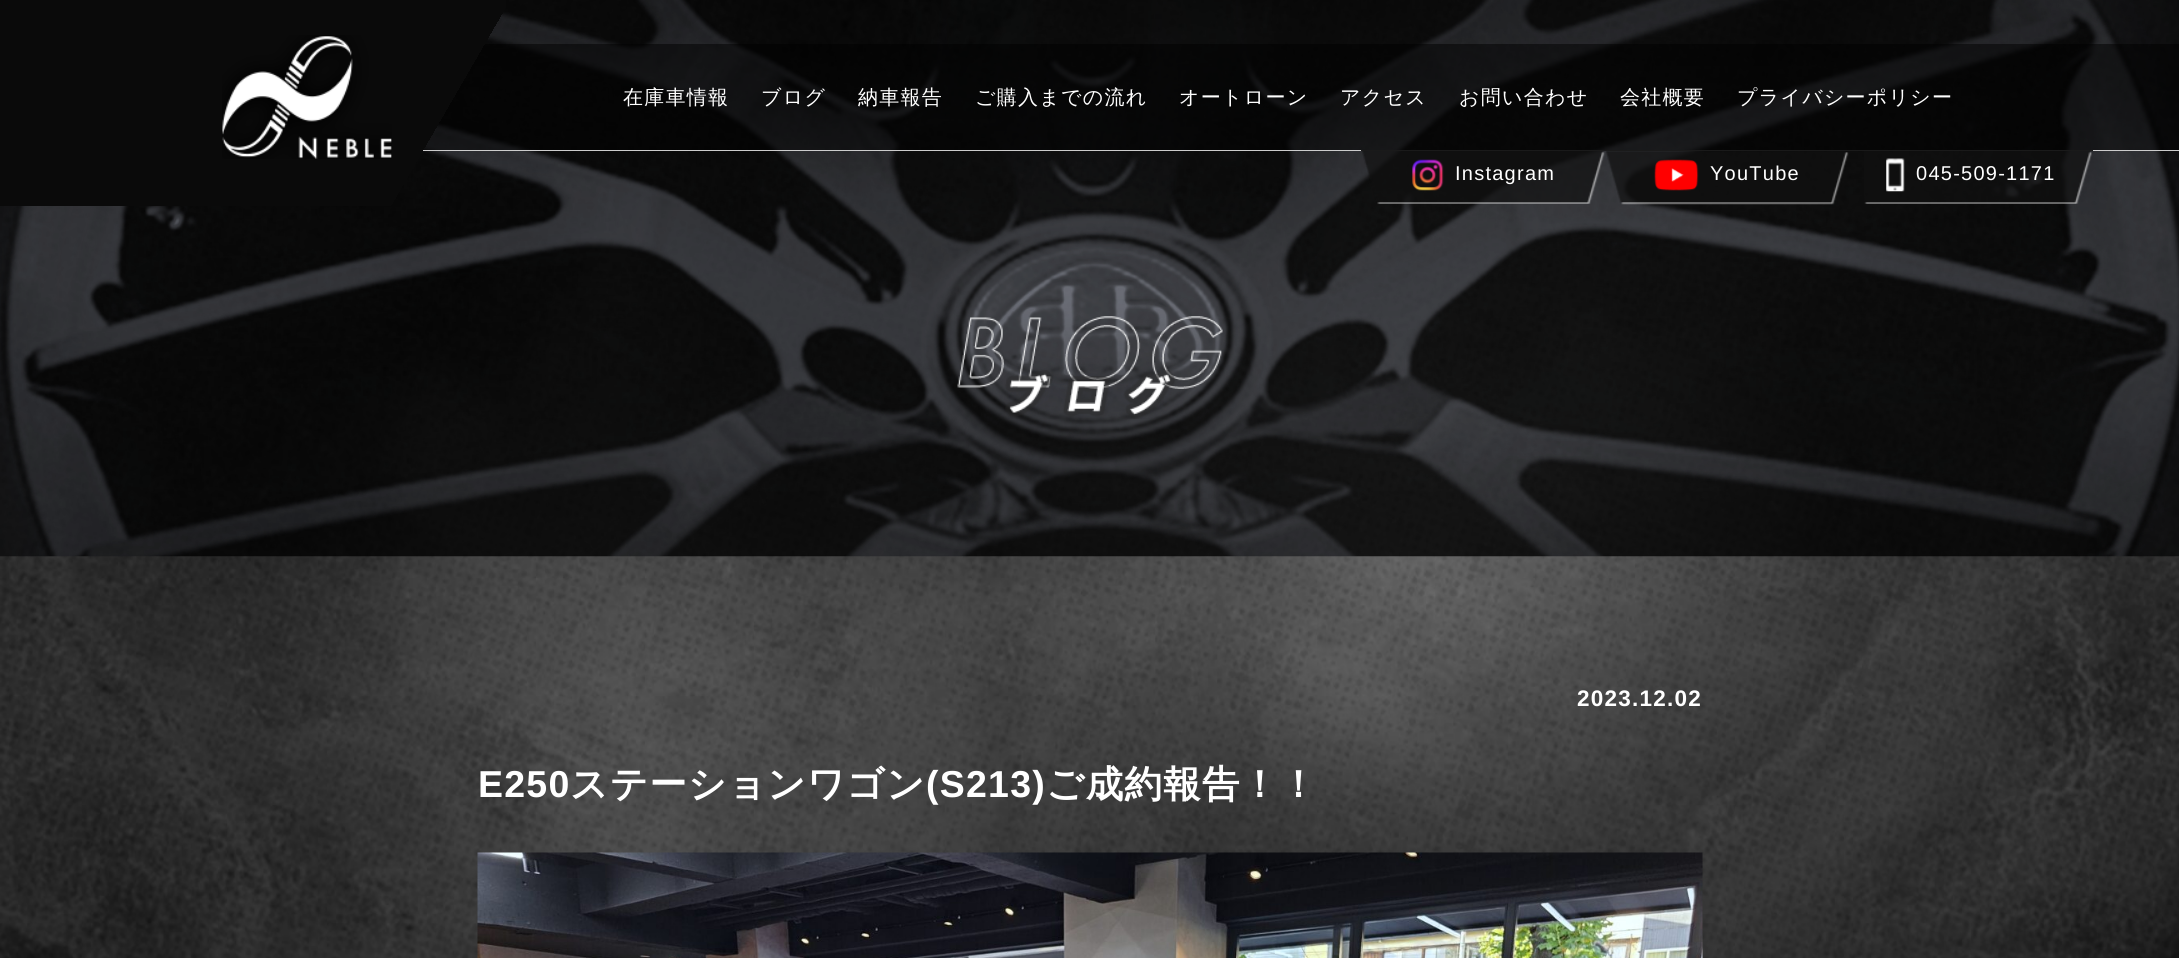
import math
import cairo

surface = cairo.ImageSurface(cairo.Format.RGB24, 2179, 958)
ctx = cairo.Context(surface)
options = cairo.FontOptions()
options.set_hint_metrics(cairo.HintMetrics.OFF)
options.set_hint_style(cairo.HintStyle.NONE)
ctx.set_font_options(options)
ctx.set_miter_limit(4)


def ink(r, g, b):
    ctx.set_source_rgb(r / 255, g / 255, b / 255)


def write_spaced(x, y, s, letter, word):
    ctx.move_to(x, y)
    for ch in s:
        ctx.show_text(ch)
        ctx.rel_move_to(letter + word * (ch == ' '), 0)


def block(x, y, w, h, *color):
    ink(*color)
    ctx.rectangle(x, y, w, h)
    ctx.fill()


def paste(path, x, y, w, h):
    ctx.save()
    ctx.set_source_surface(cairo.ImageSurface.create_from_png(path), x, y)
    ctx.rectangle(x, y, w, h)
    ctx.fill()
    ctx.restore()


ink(255, 255, 255)
ctx.paint()
paste("pic1.png", 0, 0, 2179, 958)
paste("pic2.png", 0, 0, 2179, 557)
paste("pic3.png", 957, 316, 266, 103)
ctx.set_source_rgba(0, 0, 0, 0.5)
ctx.rectangle(424, 44, 1755, 106)
ctx.fill()
block(423, 150, 1756, 1, 204, 204, 204)
gradient = cairo.LinearGradient(578, 261, 32, -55)
gradient.add_color_stop_rgba(0, 0, 0, 0, 0)
gradient.add_color_stop_rgba(0.3, 0.039, 0.039, 0.039, 0)
gradient.add_color_stop_rgba(0.3, 0.039, 0.039, 0.039, 1)
gradient.add_color_stop_rgba(1, 0.039, 0.039, 0.039, 1)
ctx.set_source(gradient)
ctx.rectangle(0, 0, 506, 206)
ctx.fill()
paste("pic4.png", 222, 35, 170, 124)
ctx.select_font_face("WenQuanYi Zen Hei Medium")
ctx.set_font_size(20)
ink(255, 255, 255)
write_spaced(623, 104, "在庫車情報", 1.25, 0)
write_spaced(761, 104, "ブログ", 1.25, 0)
write_spaced(858, 104, "納車報告", 1.25, 0)
write_spaced(975, 104, "ご購入までの流れ", 1.25, 0)
write_spaced(1179, 104, "オートローン", 1.25, 0)
write_spaced(1340, 104, "アクセス", 1.25, 0)
write_spaced(1459, 104, "お問い合わせ", 1.25, 0)
write_spaced(1620, 104, "会社概要", 1.25, 0)
write_spaced(1737, 104, "プライバシーポリシー", 1.25, 0)
block(1361, 150, 732, 1, 26, 26, 26)
paste("pic5.png", 1362, 151, 243, 53)
paste("pic6.png", 1412, 159, 32, 32)
ctx.select_font_face("Liberation Sans")
ink(255, 255, 255)
write_spaced(1455, 180, "Instagram", 1.25, 0)
paste("pic7.png", 1606, 151, 243, 54)
paste("pic8.png", 1654, 159, 45, 32)
write_spaced(1710, 180, "YouTube", 1.25, 0)
paste("pic9.png", 1864, 151, 228, 53)
paste("pic10.png", 1886, 158, 19, 34)
write_spaced(1916, 180, "045-509-1171", 1.25, 0)
ctx.select_font_face("Liberation Sans", cairo.FontSlant.NORMAL, cairo.FontWeight.BOLD)
ctx.set_font_size(22.5)
write_spaced(1577, 706, "2023.12.02", 1.25, 0)
ctx.set_font_size(37.5)
write_spaced(478, 797, "E250", 1.25, 0)
ctx.select_font_face("WenQuanYi Zen Hei", cairo.FontSlant.NORMAL, cairo.FontWeight.BOLD)
write_spaced(570, 797, "ステーションワゴン", 1.25, 0)
ctx.select_font_face("Liberation Sans", cairo.FontSlant.NORMAL, cairo.FontWeight.BOLD)
write_spaced(926, 797, "(S213)", 1.25, 0)
ctx.select_font_face("WenQuanYi Zen Hei", cairo.FontSlant.NORMAL, cairo.FontWeight.BOLD)
write_spaced(1046, 797, "ご成約報告！！", 1.25, 0)
paste("pic11.png", 477, 852, 1226, 106)
surface.write_to_png("screenshot.png")
